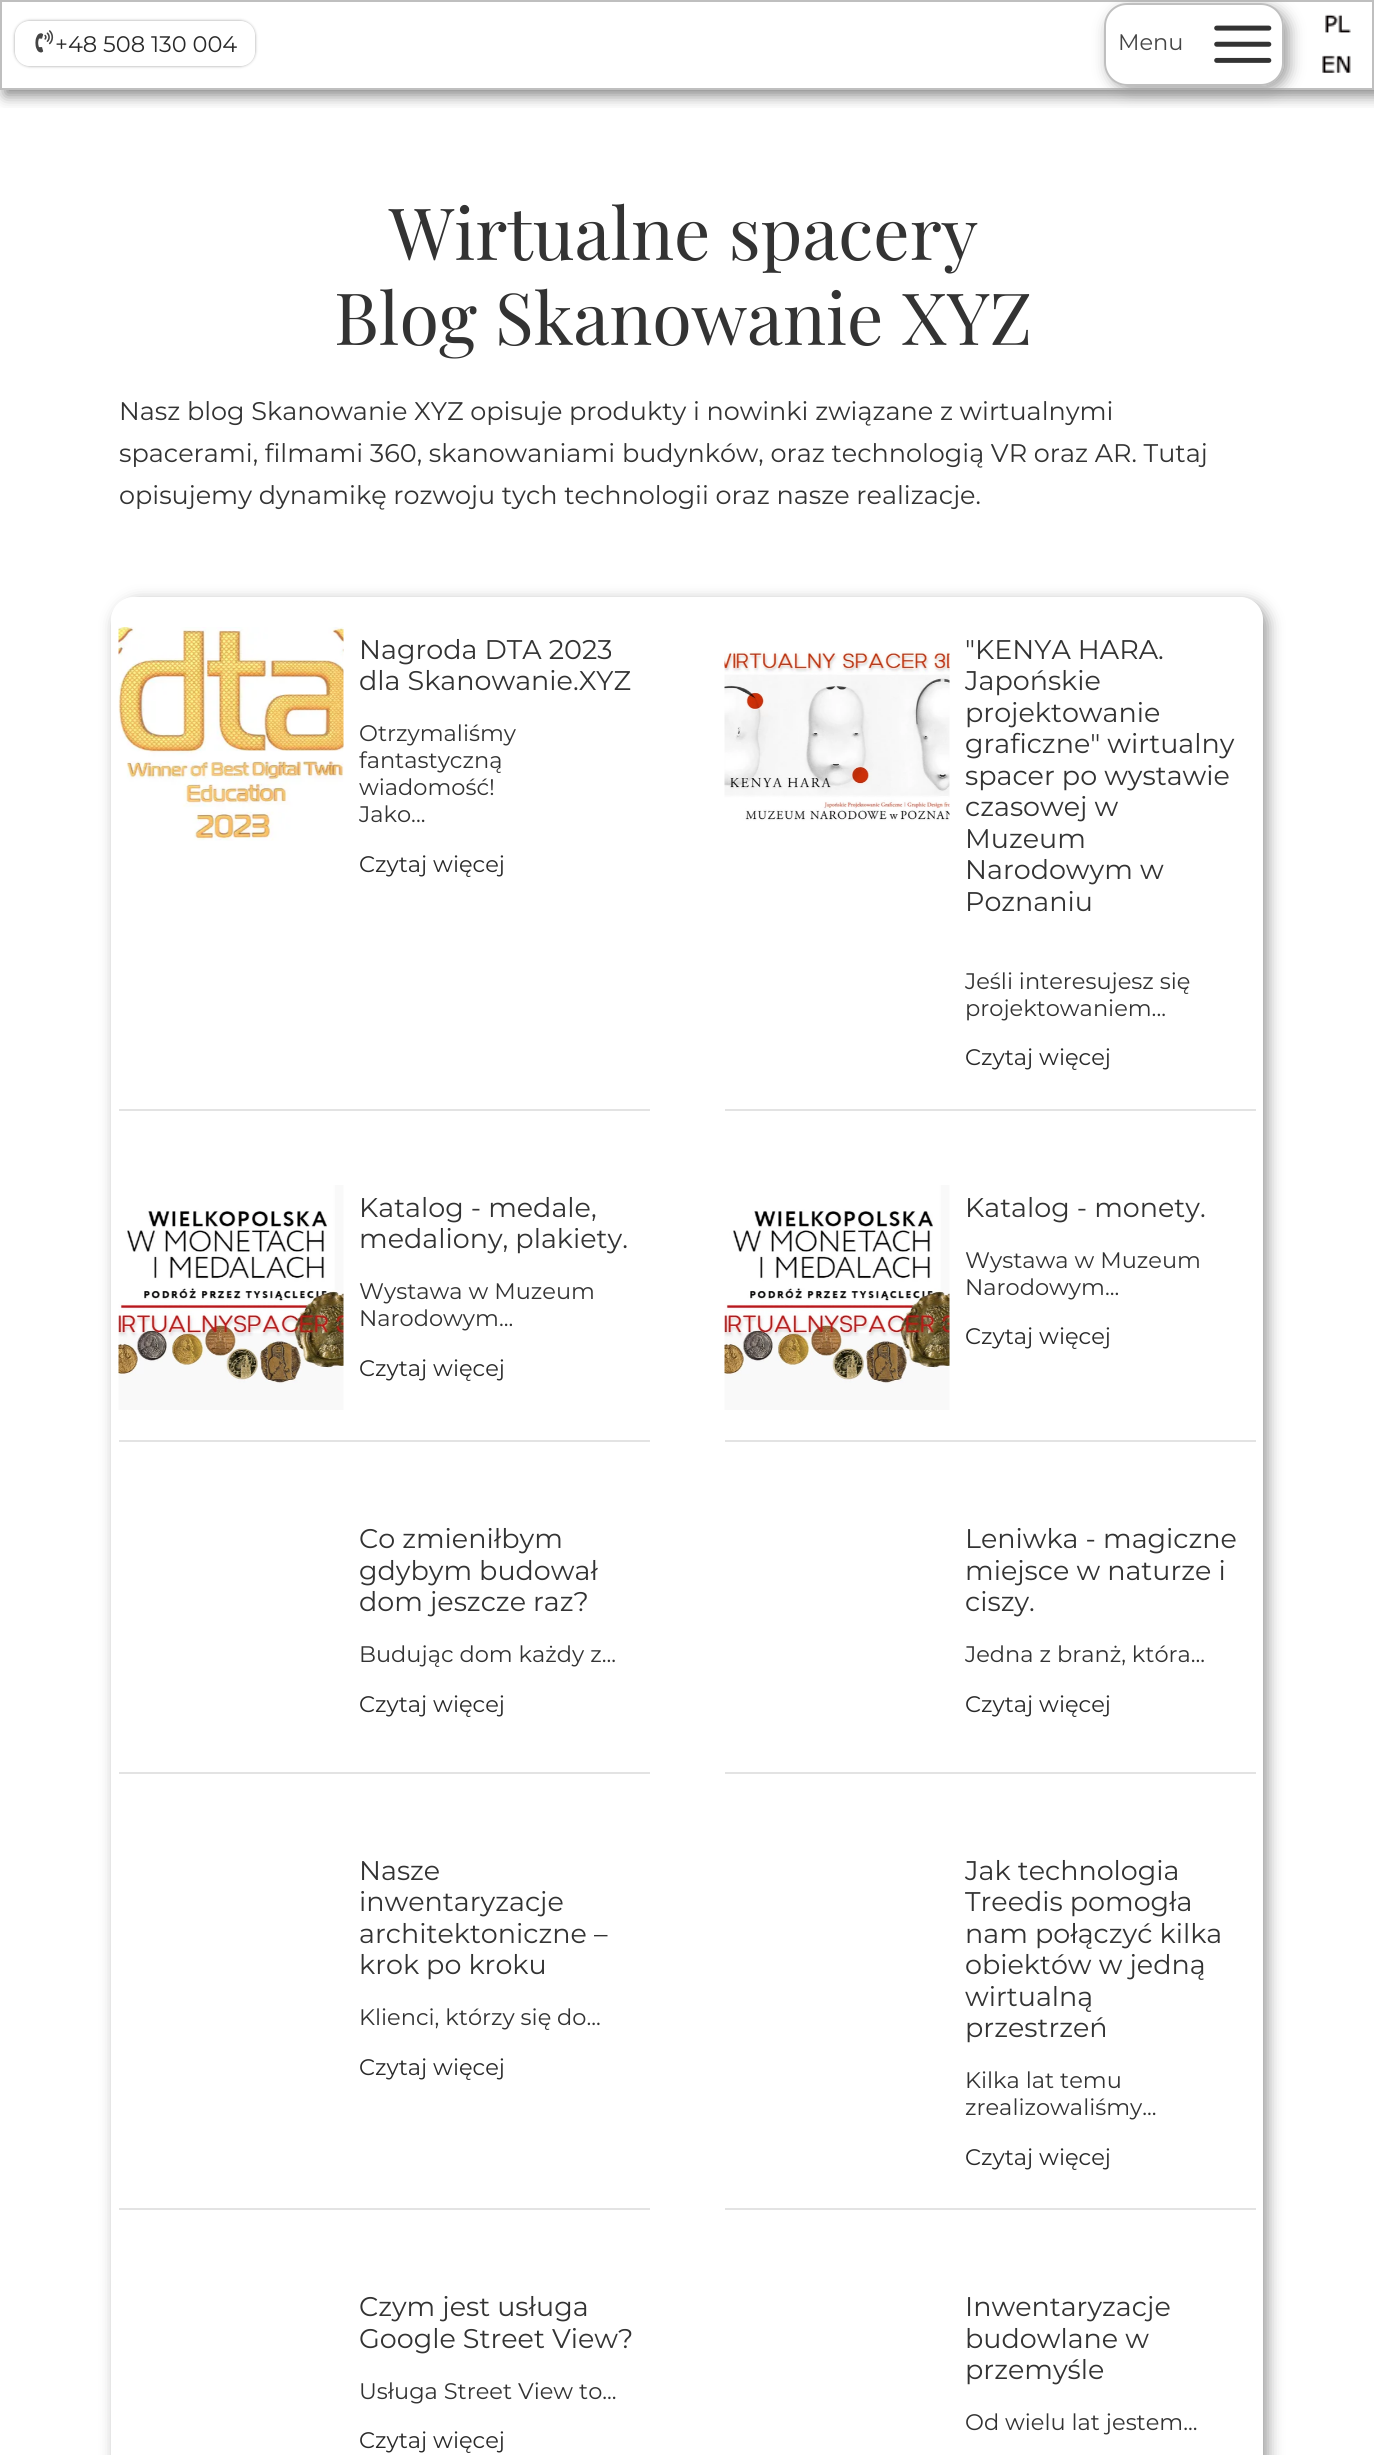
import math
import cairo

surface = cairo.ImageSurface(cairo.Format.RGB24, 1374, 2455)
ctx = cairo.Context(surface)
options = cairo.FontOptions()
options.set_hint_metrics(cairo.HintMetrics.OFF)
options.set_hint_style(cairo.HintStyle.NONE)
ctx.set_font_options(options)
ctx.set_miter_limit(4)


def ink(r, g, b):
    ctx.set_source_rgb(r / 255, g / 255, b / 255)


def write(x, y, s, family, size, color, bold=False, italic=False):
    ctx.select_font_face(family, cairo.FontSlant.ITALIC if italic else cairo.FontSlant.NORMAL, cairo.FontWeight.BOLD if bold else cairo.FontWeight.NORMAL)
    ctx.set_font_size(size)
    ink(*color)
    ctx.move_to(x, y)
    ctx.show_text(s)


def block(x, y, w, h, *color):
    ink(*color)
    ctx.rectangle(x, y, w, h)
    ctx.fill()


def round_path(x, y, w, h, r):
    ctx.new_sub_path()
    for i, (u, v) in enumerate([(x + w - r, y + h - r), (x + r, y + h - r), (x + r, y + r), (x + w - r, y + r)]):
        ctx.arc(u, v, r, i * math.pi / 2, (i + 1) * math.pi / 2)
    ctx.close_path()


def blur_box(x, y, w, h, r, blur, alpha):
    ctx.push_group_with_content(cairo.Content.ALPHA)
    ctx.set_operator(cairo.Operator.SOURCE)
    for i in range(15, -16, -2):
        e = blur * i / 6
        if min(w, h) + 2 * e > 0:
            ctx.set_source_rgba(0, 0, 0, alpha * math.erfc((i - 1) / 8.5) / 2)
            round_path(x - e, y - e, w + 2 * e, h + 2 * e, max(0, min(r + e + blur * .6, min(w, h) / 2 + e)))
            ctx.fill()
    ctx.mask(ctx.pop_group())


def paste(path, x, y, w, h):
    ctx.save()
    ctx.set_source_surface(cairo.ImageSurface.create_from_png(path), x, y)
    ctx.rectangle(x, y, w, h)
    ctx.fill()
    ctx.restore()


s1 = dict(family="Montserrat Thin", size=22.5, color=(41, 41, 41))
s2 = dict(family="Montserrat Thin", size=22.5, color=(69, 69, 69))
s3 = dict(family="Playfair Display", size=72, color=(51, 51, 51))
s4 = dict(family="Montserrat Thin", size=25.5, color=(51, 51, 51))
s5 = dict(family="Montserrat Thin", size=27, color=(51, 51, 51))
s6 = dict(family="Montserrat Thin", size=22.5, color=(51, 51, 51))

ink(255, 255, 255)
ctx.paint()
ctx.save()
ctx.rectangle(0, 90, 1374, 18)
ctx.clip()
ink(0, 0, 0)
blur_box(5, 5, 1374, 90, 0, 7.5, 0.5)
ctx.restore()
ctx.rectangle(1, 1, 1372, 88)
ink(191, 191, 191)
ctx.stroke()
ctx.save()
ctx.set_fill_rule(cairo.FillRule.EVEN_ODD)
ctx.new_path()
ctx.move_to(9, 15)
ctx.line_to(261, 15)
ctx.line_to(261, 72)
ctx.line_to(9, 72)
ctx.close_path()
ctx.move_to(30, 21)
ctx.line_to(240, 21)
ctx.curve_to(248.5, 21, 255, 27.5, 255, 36)
ctx.line_to(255, 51)
ctx.curve_to(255, 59.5, 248.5, 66, 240, 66)
ctx.line_to(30, 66)
ctx.curve_to(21.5, 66, 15, 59.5, 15, 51)
ctx.line_to(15, 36)
ctx.curve_to(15, 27.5, 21.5, 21, 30, 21)
ctx.close_path()
ctx.clip()
ink(156, 156, 156)
blur_box(15, 21, 240, 45, 15, 1.5, 1)
ctx.restore()
ctx.save()
ctx.set_fill_rule(cairo.FillRule.EVEN_ODD)
ctx.new_path()
ctx.move_to(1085, 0)
ctx.line_to(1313, 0)
ctx.line_to(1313, 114)
ctx.line_to(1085, 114)
ctx.close_path()
ctx.move_to(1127, 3)
ctx.line_to(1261, 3)
ctx.curve_to(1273.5, 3, 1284, 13.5, 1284, 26)
ctx.line_to(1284, 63)
ctx.curve_to(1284, 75.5, 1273.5, 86, 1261, 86)
ctx.line_to(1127, 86)
ctx.curve_to(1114.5, 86, 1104, 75.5, 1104, 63)
ctx.line_to(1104, 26)
ctx.curve_to(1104, 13.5, 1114.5, 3, 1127, 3)
ctx.close_path()
ctx.clip()
ink(156, 156, 156)
blur_box(1109, 8, 180, 82, 23, 7.5, 1)
ctx.restore()
round_path(1105, 4, 178, 81, 22)
ctx.set_source_rgba(0.239, 0.239, 0.239, 0.33)
ctx.stroke()
paste("pic1.png", 1214, 25, 58, 38)
paste("pic2.png", 1325, 14, 26, 19)
paste("pic3.png", 1322, 55, 29, 18)
paste("pic4.png", 35, 30, 19, 23)
write(55, 52, "+48 508 130 004", **s1)
write(1118, 50, "Menu", **s2)
write(389, 260, "Wirtualne spacery", **s3)
write(334, 345, "Blog Skanowanie XYZ", **s3)
write(119, 420, "Nasz blog Skanowanie XYZ opisuje produkty i nowinki związane z wirtualnymi", **s4)
write(119, 462, "spacerami, filmami 360, skanowaniami budynków, oraz technologią VR oraz AR. Tutaj", **s4)
write(119, 504, "opisujemy dynamikę rozwoju tych technologii oraz nasze realizacje.", **s4)
ctx.save()
ctx.set_fill_rule(cairo.FillRule.EVEN_ODD)
ctx.new_path()
ctx.move_to(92, 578)
ctx.line_to(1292, 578)
ctx.line_to(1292, 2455)
ctx.line_to(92, 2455)
ctx.close_path()
ctx.move_to(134, 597)
ctx.line_to(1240, 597)
ctx.curve_to(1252.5, 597, 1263, 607.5, 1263, 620)
ctx.line_to(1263, 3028)
ctx.curve_to(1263, 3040.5, 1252.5, 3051, 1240, 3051)
ctx.line_to(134, 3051)
ctx.curve_to(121.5, 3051, 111, 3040.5, 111, 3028)
ctx.line_to(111, 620)
ctx.curve_to(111, 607.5, 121.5, 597, 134, 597)
ctx.close_path()
ctx.clip()
ink(156, 156, 156)
blur_box(116, 602, 1152, 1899, 23, 7.5, 1)
ctx.restore()
block(119, 1109, 531, 2, 227, 227, 227)
paste("pic5.png", 118, 627, 226, 214)
write(359, 659, "Nagroda DTA 2023", **s5)
write(359, 690, "dla Skanowanie.XYZ", **s5)
write(359, 741, "Otrzymaliśmy", **s6)
write(359, 768, "fantastyczną", **s6)
write(359, 795, "wiadomość!", **s6)
write(359, 822, "Jako...", **s6)
write(359, 872, "Czytaj więcej", **s1)
block(725, 1109, 531, 2, 227, 227, 227)
paste("pic6.png", 724, 651, 226, 170)
write(965, 659, "\"KENYA HARA.", **s5)
write(965, 690, "Japońskie", **s5)
write(965, 722, "projektowanie", **s5)
write(965, 753, "graficzne\" wirtualny", **s5)
write(965, 785, "spacer po wystawie", **s5)
write(965, 816, "czasowej w", **s5)
write(965, 848, "Muzeum", **s5)
write(965, 879, "Narodowym w", **s5)
write(965, 911, "Poznaniu", **s5)
write(965, 989, "Jeśli interesujesz się", **s6)
write(965, 1016, "projektowaniem...", **s6)
write(965, 1065, "Czytaj więcej", **s1)
block(119, 1440, 531, 2, 227, 227, 227)
paste("pic7.png", 118, 1185, 226, 225)
write(359, 1217, "Katalog - medale,", **s5)
write(359, 1248, "medaliony, plakiety.", **s5)
write(359, 1299, "Wystawa w Muzeum", **s6)
write(359, 1326, "Narodowym...", **s6)
write(359, 1376, "Czytaj więcej", **s1)
block(725, 1440, 531, 2, 227, 227, 227)
paste("pic8.png", 724, 1185, 226, 225)
write(965, 1217, "Katalog - monety.", **s5)
write(965, 1268, "Wystawa w Muzeum", **s6)
write(965, 1295, "Narodowym...", **s6)
write(965, 1344, "Czytaj więcej", **s1)
block(119, 1772, 531, 2, 227, 227, 227)
write(359, 1548, "Co zmieniłbym", **s5)
write(359, 1580, "gdybym budował", **s5)
write(359, 1611, "dom jeszcze raz?", **s5)
write(359, 1662, "Budując dom każdy z...", **s6)
write(359, 1712, "Czytaj więcej", **s1)
block(725, 1772, 531, 2, 227, 227, 227)
write(965, 1548, "Leniwka - magiczne", **s5)
write(965, 1580, "miejsce w naturze i", **s5)
write(965, 1611, "ciszy.", **s5)
write(965, 1662, "Jedna z branż, która...", **s6)
write(965, 1712, "Czytaj więcej", **s1)
block(119, 2208, 531, 2, 227, 227, 227)
write(359, 1880, "Nasze", **s5)
write(359, 1911, "inwentaryzacje", **s5)
write(359, 1943, "architektoniczne –", **s5)
write(359, 1974, "krok po kroku", **s5)
write(359, 2025, "Klienci, którzy się do...", **s6)
write(359, 2075, "Czytaj więcej", **s1)
block(725, 2208, 531, 2, 227, 227, 227)
write(965, 1880, "Jak technologia", **s5)
write(965, 1911, "Treedis pomogła", **s5)
write(965, 1943, "nam połączyć kilka", **s5)
write(965, 1974, "obiektów w jedną", **s5)
write(965, 2006, "wirtualną", **s5)
write(965, 2037, "przestrzeń", **s5)
write(965, 2088, "Kilka lat temu", **s6)
write(965, 2115, "zrealizowaliśmy...", **s6)
write(965, 2165, "Czytaj więcej", **s1)
write(359, 2316, "Czym jest usługa", **s5)
write(359, 2348, "Google Street View?", **s5)
write(359, 2399, "Usługa Street View to...", **s6)
write(359, 2448, "Czytaj więcej", **s1)
write(965, 2316, "Inwentaryzacje", **s5)
write(965, 2348, "budowlane w", **s5)
write(965, 2379, "przemyśle", **s5)
write(965, 2430, "Od wielu lat jestem...", **s6)
surface.write_to_png("screenshot.png")
